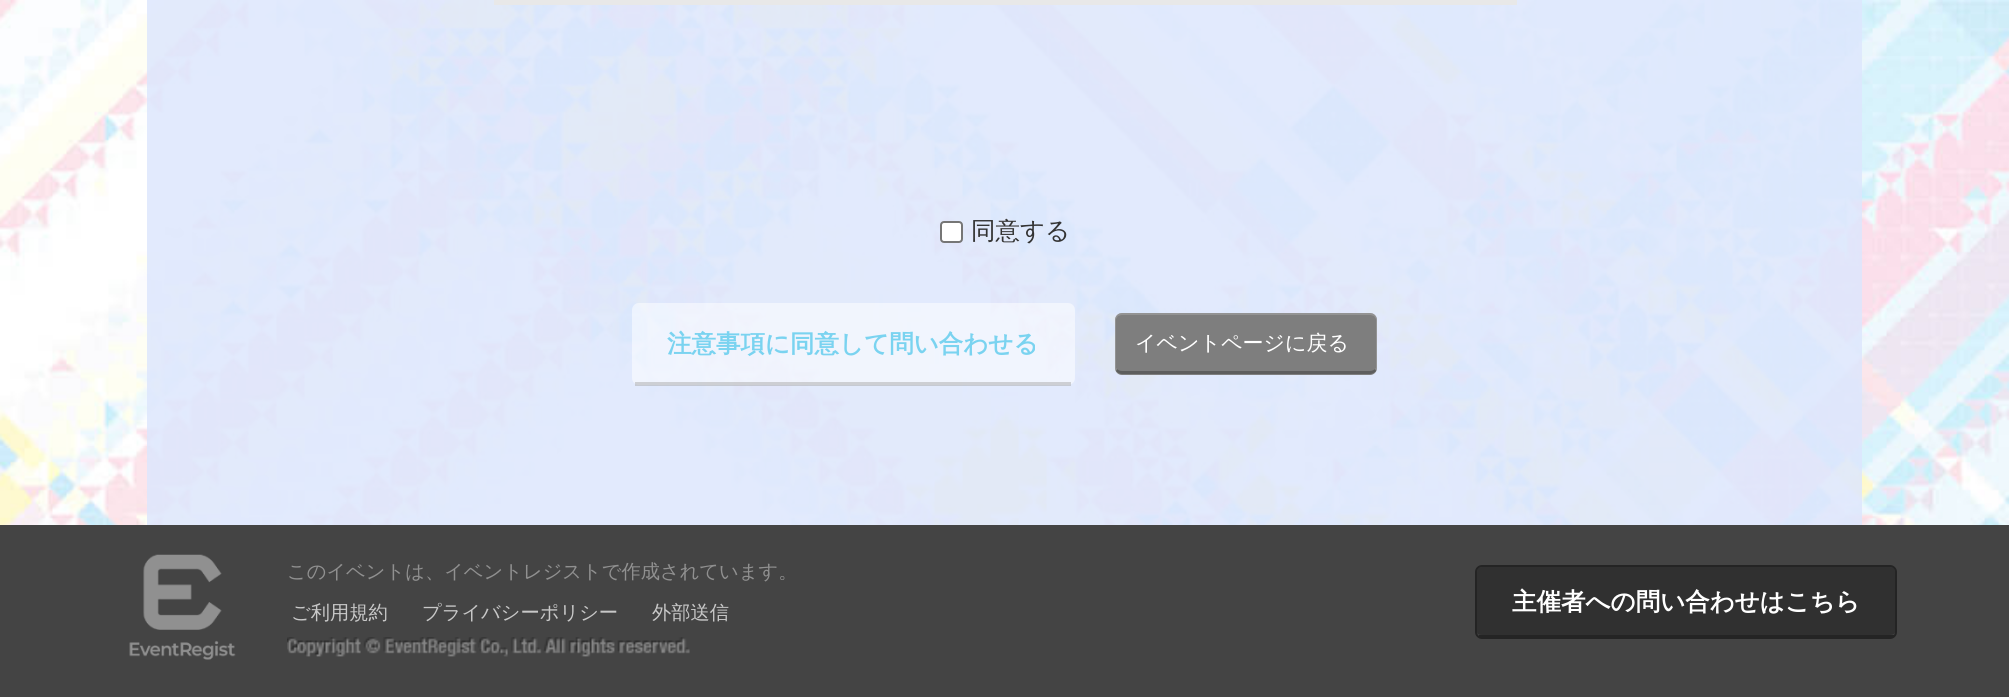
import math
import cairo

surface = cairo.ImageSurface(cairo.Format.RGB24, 2009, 697)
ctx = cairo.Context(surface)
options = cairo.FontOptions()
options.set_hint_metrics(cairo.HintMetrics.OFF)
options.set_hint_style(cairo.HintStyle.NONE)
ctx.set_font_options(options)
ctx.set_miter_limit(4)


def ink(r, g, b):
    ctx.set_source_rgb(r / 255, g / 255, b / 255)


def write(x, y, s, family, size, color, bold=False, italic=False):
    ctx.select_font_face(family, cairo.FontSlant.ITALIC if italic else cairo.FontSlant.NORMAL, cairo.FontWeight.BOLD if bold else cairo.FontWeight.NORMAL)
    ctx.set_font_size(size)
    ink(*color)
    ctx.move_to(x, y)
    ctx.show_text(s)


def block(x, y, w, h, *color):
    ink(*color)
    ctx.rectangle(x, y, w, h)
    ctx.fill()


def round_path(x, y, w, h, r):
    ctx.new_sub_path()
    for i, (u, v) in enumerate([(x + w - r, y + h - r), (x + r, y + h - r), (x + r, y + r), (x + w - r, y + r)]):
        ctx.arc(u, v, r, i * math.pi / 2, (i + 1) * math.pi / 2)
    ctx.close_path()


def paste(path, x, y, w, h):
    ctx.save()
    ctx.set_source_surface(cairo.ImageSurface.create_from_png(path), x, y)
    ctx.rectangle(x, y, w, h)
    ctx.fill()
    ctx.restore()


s1 = dict(family="WenQuanYi Zen Hei Medium", size=24.5, color=(51, 51, 51))
s2 = dict(family="WenQuanYi Zen Hei", size=24.5, color=(122, 211, 240), bold=True)
s3 = dict(family="WenQuanYi Zen Hei Medium", size=21, color=(255, 255, 255))
s4 = dict(family="WenQuanYi Zen Hei Medium", size=19.25, color=(144, 144, 144))
s5 = dict(family="WenQuanYi Zen Hei Medium", size=19.25, color=(200, 200, 200))
s6 = dict(family="WenQuanYi Zen Hei", size=24.5, color=(255, 255, 255), bold=True)

ink(255, 255, 255)
ctx.paint()
paste("pic1.png", 0, 0, 2009, 525)
ctx.set_source_rgba(0.867, 0.902, 0.992, 0.85)
ctx.rectangle(147, 0, 1715, 525)
ctx.fill()
ctx.rectangle(498.5, -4.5, 1014, 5)
ink(232, 232, 232)
ctx.set_line_width(9)
ctx.stroke()
ink(255, 255, 255)
round_path(941, 222, 21, 20, 3)
ctx.fill_preserve()
ink(118, 118, 118)
ctx.set_line_width(2)
ctx.stroke()
write(971, 239, "同意する", **s1)
ctx.set_source_rgba(1, 1, 1, 0.5)
round_path(632, 303, 443, 82, 7)
ctx.fill()
ctx.set_source_rgba(0.667, 0.667, 0.667, 0.5)
ctx.rectangle(635, 382, 436, 4)
ctx.fill()
write(667, 352, "注意事項に同意して問い合わせる", **s2)
ink(126, 126, 126)
round_path(1115, 313, 262, 62, 7)
ctx.fill()
ctx.set_source_rgba(0.702, 0.702, 0.702, 0.4)
ctx.new_path()
ctx.move_to(1122, 315)
ctx.curve_to(1120, 315, 1119, 316, 1118, 316)
ctx.line_to(1117, 315)
ctx.line_to(1120, 313)
ctx.line_to(1372, 313)
ctx.line_to(1375, 315)
ctx.line_to(1374, 316)
ctx.curve_to(1373, 316, 1372, 315, 1370, 315)
ctx.close_path()
ctx.fill()
ctx.new_path()
ctx.move_to(1375, 315)
ctx.curve_to(1376, 316, 1377, 318, 1377, 320)
ctx.line_to(1377, 368)
ctx.curve_to(1377, 369, 1377, 370, 1376, 371)
ctx.line_to(1375, 369)
ctx.line_to(1376, 368)
ctx.line_to(1376, 319)
ctx.line_to(1374, 316)
ctx.close_path()
ctx.fill()
ink(94, 94, 94)
ctx.new_path()
ctx.move_to(1376, 371)
ctx.curve_to(1374, 373, 1372, 374, 1370, 374)
ctx.line_to(1122, 374)
ctx.curve_to(1120, 374, 1118, 373, 1116, 371)
ctx.line_to(1117, 369)
ctx.curve_to(1118, 370, 1120, 371, 1122, 371)
ctx.line_to(1370, 371)
ctx.curve_to(1372, 371, 1374, 370, 1375, 369)
ctx.close_path()
ctx.fill()
ctx.set_source_rgba(0.702, 0.702, 0.702, 0.4)
ctx.new_path()
ctx.move_to(1116, 371)
ctx.curve_to(1115, 370, 1115, 369, 1115, 368)
ctx.line_to(1115, 320)
ctx.curve_to(1115, 318, 1116, 316, 1117, 315)
ctx.line_to(1118, 316)
ctx.line_to(1116, 319)
ctx.line_to(1116, 368)
ctx.line_to(1117, 369)
ctx.close_path()
ctx.fill()
write(1135, 350, "イベントページに戻る", **s3)
block(0, 525, 2009, 172, 68, 68, 68)
paste("pic2.png", 129, 554, 107, 106)
write(287, 578, "このイベントは、イベントレジストで作成されています。", **s4)
write(291, 619, "ご利用規約", **s5)
write(422, 619, "プライバシーポリシー", **s5)
write(652, 619, "外部送信", **s5)
paste("pic3.png", 287, 637, 403, 20)
ink(48, 48, 48)
ctx.new_path()
ctx.move_to(1482, 567)
ctx.line_to(1890, 567)
ctx.curve_to(1893, 567, 1895, 569, 1895, 572)
ctx.line_to(1895, 632)
ctx.curve_to(1895, 634, 1893, 635, 1890, 635)
ctx.line_to(1482, 635)
ctx.curve_to(1479, 635, 1477, 634, 1477, 632)
ctx.line_to(1477, 572)
ctx.curve_to(1477, 569, 1479, 567, 1482, 567)
ctx.close_path()
ctx.fill()
round_path(1476, 566, 420, 72, 6)
ink(36, 36, 36)
ctx.stroke()
block(1479, 635, 415, 2, 36, 36, 36)
write(1512, 610, "主催者への問い合わせはこちら", **s6)
surface.write_to_png("screenshot.png")
